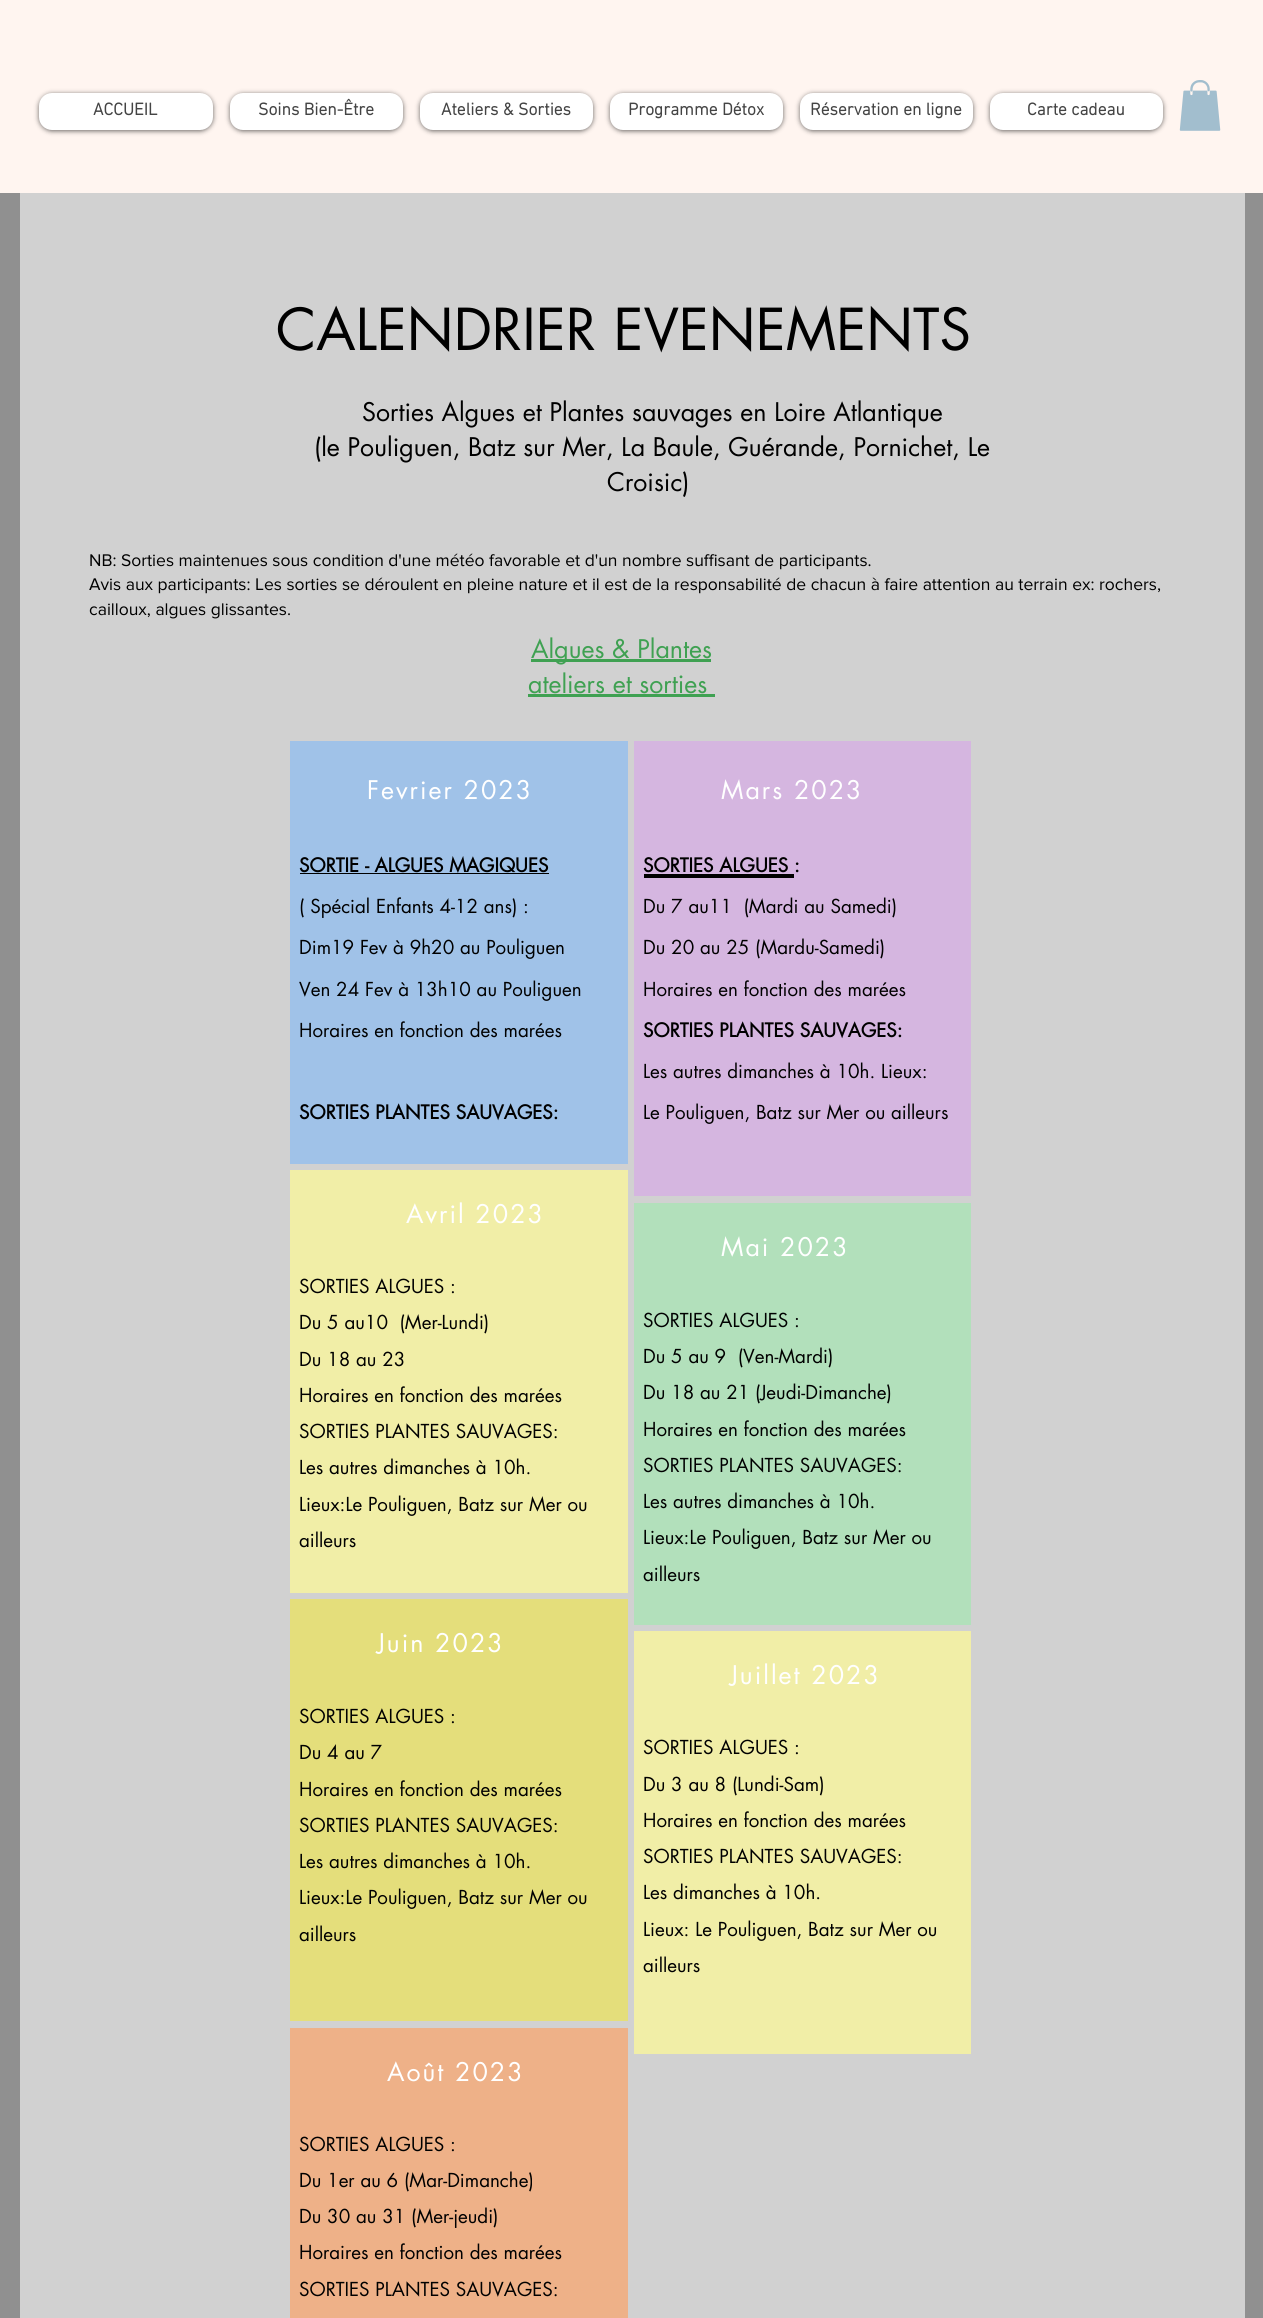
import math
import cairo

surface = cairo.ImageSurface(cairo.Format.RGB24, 1263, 2318)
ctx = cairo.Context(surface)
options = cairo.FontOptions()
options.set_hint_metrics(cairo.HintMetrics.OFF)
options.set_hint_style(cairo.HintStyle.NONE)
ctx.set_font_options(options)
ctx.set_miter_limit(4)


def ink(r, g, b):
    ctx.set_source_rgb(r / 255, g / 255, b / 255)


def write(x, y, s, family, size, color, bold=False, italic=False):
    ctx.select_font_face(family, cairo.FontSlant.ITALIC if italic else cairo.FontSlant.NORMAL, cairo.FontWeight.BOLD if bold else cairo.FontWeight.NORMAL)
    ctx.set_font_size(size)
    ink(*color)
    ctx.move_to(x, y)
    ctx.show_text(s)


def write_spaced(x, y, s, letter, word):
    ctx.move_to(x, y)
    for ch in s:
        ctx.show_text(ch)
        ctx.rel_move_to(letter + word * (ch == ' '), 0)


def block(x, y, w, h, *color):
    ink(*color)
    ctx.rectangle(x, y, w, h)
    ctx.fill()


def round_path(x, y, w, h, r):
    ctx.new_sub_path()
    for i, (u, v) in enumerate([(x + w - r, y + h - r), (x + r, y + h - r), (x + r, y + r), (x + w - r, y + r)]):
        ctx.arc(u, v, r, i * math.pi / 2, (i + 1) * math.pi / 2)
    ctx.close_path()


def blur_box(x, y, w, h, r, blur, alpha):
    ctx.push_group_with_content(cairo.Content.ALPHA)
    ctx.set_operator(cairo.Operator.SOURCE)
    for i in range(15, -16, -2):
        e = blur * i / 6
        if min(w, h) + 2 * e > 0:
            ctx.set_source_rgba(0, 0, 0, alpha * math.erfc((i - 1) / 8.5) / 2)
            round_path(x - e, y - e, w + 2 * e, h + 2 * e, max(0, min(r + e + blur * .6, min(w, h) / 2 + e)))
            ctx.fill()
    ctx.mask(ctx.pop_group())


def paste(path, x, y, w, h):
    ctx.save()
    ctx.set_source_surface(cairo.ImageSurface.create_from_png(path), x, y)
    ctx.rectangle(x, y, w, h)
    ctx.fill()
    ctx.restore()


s1 = dict(family="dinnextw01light", size=17.5, color=(68, 68, 68), bold=True)
s2 = dict(family="futura", size=56.25, color=(0, 0, 0))
s3 = dict(family="futura", size=25, color=(0, 0, 0))
s4 = dict(family="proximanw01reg", size=17.5, color=(0, 0, 0))
s5 = dict(family="futura", size=25, color=(63, 161, 82))
s6 = dict(family="futura", size=18.75, color=(0, 0, 0), bold=True)
s7 = dict(family="futura", size=18.75, color=(0, 0, 0))

ink(144, 144, 144)
ctx.paint()
block(0, 0, 1263, 193, 255, 245, 240)
ink(0, 0, 0)
blur_box(39, 94, 174, 37, 13, 2.5, 0.6)
ink(255, 255, 255)
round_path(39, 93, 174, 37, 13)
ctx.fill()
write(93, 115, "ACCUEIL", **s1)
ink(0, 0, 0)
blur_box(230, 94, 173, 37, 13, 2.5, 0.6)
ink(255, 255, 255)
round_path(230, 93, 173, 37, 13)
ctx.fill()
write(258, 115, "Soins Bien-Être", **s1)
ink(0, 0, 0)
blur_box(420, 94, 173, 37, 13, 2.5, 0.6)
ink(255, 255, 255)
round_path(420, 93, 173, 37, 13)
ctx.fill()
write(441, 115, "Ateliers & Sorties", **s1)
ink(0, 0, 0)
blur_box(610, 94, 173, 37, 13, 2.5, 0.6)
ink(255, 255, 255)
round_path(610, 93, 173, 37, 13)
ctx.fill()
write(628, 115, "Programme Détox", **s1)
ink(0, 0, 0)
blur_box(800, 94, 173, 37, 13, 2.5, 0.6)
ink(255, 255, 255)
round_path(800, 93, 173, 37, 13)
ctx.fill()
write(810, 115, "Réservation en ligne", **s1)
ink(0, 0, 0)
blur_box(990, 94, 173, 37, 13, 2.5, 0.6)
ink(255, 255, 255)
round_path(990, 93, 173, 37, 13)
ctx.fill()
write(1027, 115, "Carte cadeau", **s1)
paste("pic1.png", 1179, 80, 42, 51)
block(20, 193, 1225, 2125, 209, 209, 209)
write(276, 350, "CALENDRIER EVENEMENTS", **s2)
write(362, 421, "Sorties Algues et Plantes sauvages en Loire Atlantique", **s3)
write(314, 456, "(le Pouliguen, Batz sur Mer, La Baule, Guérande, Pornichet, Le", **s3)
write(607, 491, "Croisic)", **s3)
write(89, 566, "NB: Sorties maintenues sous condition d'une météo favorable et d'un nombre suffisant de participants.", **s4)
write(89, 590, "Avis aux participants: Les sorties se déroulent en pleine nature et il est de la responsabilité de chacun à faire attention au terrain ex: rochers,", **s4)
write(89, 615, "cailloux, algues glissantes.", **s4)
block(531, 659, 180, 3, 63, 161, 82)
write(531, 658, "Algues & Plantes", **s5)
write(528, 693, "ateliers et sorties", **s5)
block(528, 694, 187, 3, 63, 161, 82)
block(290, 741, 338, 423, 160, 194, 232)
ink(255, 255, 255)
write_spaced(367, 799, "Fevrier 2023", 2, 0)
write(299, 872, "SORTIE - ALGUES MAGIQUES", **s6)
block(300, 873, 249, 1, 0, 0, 0)
write(299, 913, "( Spécial Enfants 4-12 ans) :", **s7)
write(299, 954, "Dim19 Fev à 9h20 au Pouliguen", **s7)
write(299, 996, "Ven 24 Fev à 13h10 au Pouliguen", **s7)
write(299, 1037, "Horaires en fonction des marées", **s7)
write(299, 1119, "SORTIES PLANTES SAUVAGES:", **s6)
block(290, 1170, 338, 423, 241, 238, 167)
ctx.select_font_face("futura")
ctx.set_font_size(25)
ink(255, 255, 255)
write_spaced(406, 1223, "Avril 2023", 2, 0)
write(299, 1293, "SORTIES ALGUES :", **s7)
write(299, 1329, "Du 5 au10  (Mer-Lundi)", **s7)
write(299, 1366, "Du 18 au 23", **s7)
write(299, 1402, "Horaires en fonction des marées", **s7)
write(299, 1438, "SORTIES PLANTES SAUVAGES:", **s7)
write(299, 1474, "Les autres dimanches à 10h.", **s7)
write(299, 1511, "Lieux:Le Pouliguen, Batz sur Mer ou", **s7)
write(299, 1547, "ailleurs", **s7)
block(290, 1599, 338, 422, 228, 222, 123)
ctx.set_font_size(25)
ink(255, 255, 255)
write_spaced(377, 1652, "Juin 2023", 2, 0)
write(299, 1723, "SORTIES ALGUES :", **s7)
write(299, 1759, "Du 4 au 7", **s7)
write(299, 1796, "Horaires en fonction des marées", **s7)
write(299, 1832, "SORTIES PLANTES SAUVAGES:", **s7)
write(299, 1868, "Les autres dimanches à 10h.", **s7)
write(299, 1904, "Lieux:Le Pouliguen, Batz sur Mer ou", **s7)
write(299, 1941, "ailleurs", **s7)
block(290, 2028, 338, 290, 238, 177, 136)
ctx.set_font_size(25)
ink(255, 255, 255)
write_spaced(387, 2081, "Août 2023", 2, 0)
write(299, 2151, "SORTIES ALGUES :", **s7)
write(299, 2187, "Du 1er au 6 (Mar-Dimanche)", **s7)
write(299, 2223, "Du 30 au 31 (Mer-jeudi)", **s7)
write(299, 2259, "Horaires en fonction des marées", **s7)
write(299, 2296, "SORTIES PLANTES SAUVAGES:", **s7)
block(634, 741, 337, 455, 213, 182, 224)
ctx.set_font_size(25)
ink(255, 255, 255)
write_spaced(721, 799, "Mars 2023", 2, 0)
write(643, 872, "SORTIES ALGUES :", **s6)
block(644, 874, 150, 4, 0, 0, 0)
write(643, 913, "Du 7 au11  (Mardi au Samedi)", **s7)
write(643, 954, "Du 20 au 25 (Mardu-Samedi)", **s7)
write(643, 996, "Horaires en fonction des marées", **s7)
write(643, 1037, "SORTIES PLANTES SAUVAGES:", **s6)
write(643, 1078, "Les autres dimanches à 10h. Lieux:", **s7)
write(643, 1119, "Le Pouliguen, Batz sur Mer ou ailleurs", **s7)
block(634, 1203, 337, 422, 178, 224, 187)
ctx.set_font_size(25)
ink(255, 255, 255)
write_spaced(721, 1256, "Mai 2023", 2, 0)
write(643, 1327, "SORTIES ALGUES :", **s7)
write(643, 1363, "Du 5 au 9  (Ven-Mardi)", **s7)
write(643, 1399, "Du 18 au 21 (Jeudi-Dimanche)", **s7)
write(643, 1436, "Horaires en fonction des marées", **s7)
write(643, 1472, "SORTIES PLANTES SAUVAGES:", **s7)
write(643, 1508, "Les autres dimanches à 10h.", **s7)
write(643, 1544, "Lieux:Le Pouliguen, Batz sur Mer ou", **s7)
write(643, 1581, "ailleurs", **s7)
block(634, 1631, 337, 423, 241, 238, 167)
ctx.set_font_size(25)
ink(255, 255, 255)
write_spaced(730, 1684, "Juillet 2023", 2, 0)
write(643, 1754, "SORTIES ALGUES :", **s7)
write(643, 1791, "Du 3 au 8 (Lundi-Sam)", **s7)
write(643, 1827, "Horaires en fonction des marées", **s7)
write(643, 1863, "SORTIES PLANTES SAUVAGES:", **s7)
write(643, 1899, "Les dimanches à 10h.", **s7)
write(643, 1936, "Lieux: Le Pouliguen, Batz sur Mer ou", **s7)
write(643, 1972, "ailleurs", **s7)
surface.write_to_png("screenshot.png")
